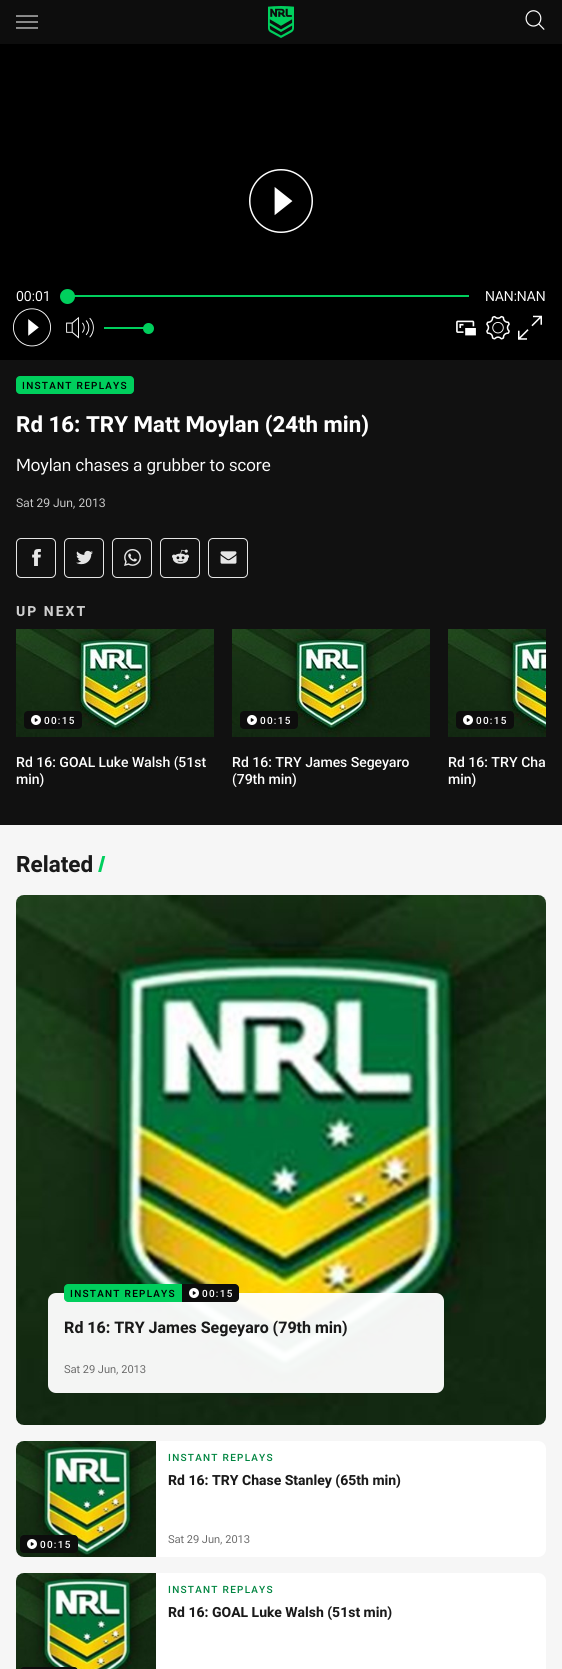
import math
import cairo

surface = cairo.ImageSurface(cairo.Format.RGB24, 562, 1669)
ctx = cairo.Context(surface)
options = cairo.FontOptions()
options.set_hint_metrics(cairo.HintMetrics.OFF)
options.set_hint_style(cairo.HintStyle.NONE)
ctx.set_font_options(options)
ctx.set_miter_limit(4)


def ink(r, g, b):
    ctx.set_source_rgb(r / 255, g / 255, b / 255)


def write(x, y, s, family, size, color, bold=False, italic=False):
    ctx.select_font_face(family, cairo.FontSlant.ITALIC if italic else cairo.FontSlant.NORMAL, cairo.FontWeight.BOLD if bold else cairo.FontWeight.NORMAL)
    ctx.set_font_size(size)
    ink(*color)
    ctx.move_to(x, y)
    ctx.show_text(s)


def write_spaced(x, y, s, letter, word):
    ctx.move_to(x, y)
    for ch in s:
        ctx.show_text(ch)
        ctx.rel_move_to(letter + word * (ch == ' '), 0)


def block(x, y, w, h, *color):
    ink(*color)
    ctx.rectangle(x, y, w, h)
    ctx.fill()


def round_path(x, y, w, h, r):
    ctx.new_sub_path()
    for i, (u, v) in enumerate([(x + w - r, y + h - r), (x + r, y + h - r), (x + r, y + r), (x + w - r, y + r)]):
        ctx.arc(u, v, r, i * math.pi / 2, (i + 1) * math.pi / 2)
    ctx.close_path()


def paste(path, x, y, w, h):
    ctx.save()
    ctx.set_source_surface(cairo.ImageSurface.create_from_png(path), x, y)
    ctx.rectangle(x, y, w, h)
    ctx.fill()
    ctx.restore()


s1 = dict(family="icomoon", size=64, color=(255, 255, 255))
s2 = dict(family="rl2", size=14, color=(255, 255, 255))
s3 = dict(family="icomoon", size=38, color=(255, 255, 255))
s4 = dict(family="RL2", size=22.25, color=(255, 255, 255), bold=True)
s5 = dict(family="rl2", size=17.1, color=(255, 255, 255))
s6 = dict(family="rl2", size=12, color=(207, 207, 207))
s7 = dict(family="RL2 Medium", size=14, color=(255, 255, 255))
s8 = dict(family="RL2", size=22.5, color=(26, 26, 26), bold=True)
s9 = dict(family="RL2", size=22.5, color=(0, 207, 93), bold=True)
s10 = dict(family="RL2", size=16, color=(26, 26, 26), bold=True)
s11 = dict(family="rl2", size=11, color=(102, 102, 102))
s12 = dict(family="RL2", size=14, color=(26, 26, 26), bold=True)

ink(246, 246, 246)
ctx.paint()
block(0, 0, 562, 44, 13, 13, 13)
paste("pic1.png", 16, 15, 22, 14)
paste("pic2.png", 268, 6, 26, 32)
paste("pic3.png", 525, 10, 20, 20)
block(0, 360, 562, 465, 17, 17, 17)
block(0, 44, 562, 316, 0, 0, 0)
write(249, 229, ">", **s1)
write(16, 301, "00:01", **s2)
block(67, 295, 402, 2, 0, 207, 93)
ctx.new_path()
ctx.arc(67.5, 296.5, 7.5, 0, 2 * math.pi)
ctx.fill()
write(485, 301, "NAN:NAN", **s2)
write(13, 344, ">", **s3)
paste("pic4.png", 66, 316, 28, 23)
block(104, 327, 44, 2, 0, 207, 93)
ctx.arc(148.5, 328.5, 5.5, 0, 2 * math.pi)
ctx.fill()
paste("pic5.png", 456, 320, 20, 16)
paste("pic6.png", 486, 315, 24, 25)
paste("pic7.png", 518, 315, 24, 25)
round_path(16, 376, 118, 18, 4)
ctx.fill()
ctx.select_font_face("RL2 Medium")
ctx.set_font_size(10)
ink(0, 0, 0)
write_spaced(22, 389, "INSTANT REPLAYS", 1.25, 0)
write(16, 432, "Rd 16: TRY Matt Moylan (24th min)", **s4)
write(16, 471, "Moylan chases a grubber to score", **s5)
write(16, 507, "Sat 29 Jun, 2013", **s6)
round_path(16.5, 538.5, 39, 39, 4.5)
ink(230, 230, 230)
ctx.set_line_width(1)
ctx.stroke()
paste("pic8.png", 32, 549, 9, 17)
round_path(64.5, 538.5, 39, 39, 4.5)
ctx.stroke()
paste("pic9.png", 76, 550, 17, 15)
round_path(112.5, 538.5, 39, 39, 4.5)
ctx.stroke()
paste("pic10.png", 124, 549, 17, 17)
round_path(160.5, 538.5, 39, 39, 4.5)
ctx.stroke()
paste("pic11.png", 172, 549, 17, 15)
round_path(208.5, 538.5, 39, 39, 4.5)
ctx.stroke()
paste("pic12.png", 220, 551, 17, 13)
ctx.select_font_face("RL2", cairo.FontSlant.NORMAL, cairo.FontWeight.BOLD)
ctx.set_font_size(14)
ink(207, 207, 207)
write_spaced(16, 616, "UP NEXT", 2, 0)
paste("pic13.png", 16, 629, 198, 108)
ink(13, 13, 13)
round_path(24, 711, 58, 18, 4)
ctx.fill()
paste("pic14.png", 31, 715, 10, 10)
ctx.select_font_face("RL2 Medium")
ctx.set_font_size(10)
ink(255, 255, 255)
write_spaced(44, 724, "00:15", 1.25, 0)
write(16, 767, "Rd 16: GOAL Luke Walsh (51st", **s7)
write(16, 784, "min)", **s7)
paste("pic13.png", 232, 629, 198, 108)
ink(13, 13, 13)
round_path(240, 711, 58, 18, 4)
ctx.fill()
paste("pic14.png", 247, 715, 10, 10)
ctx.set_font_size(10)
ink(255, 255, 255)
write_spaced(260, 724, "00:15", 1.25, 0)
write(232, 767, "Rd 16: TRY James Segeyaro", **s7)
write(232, 784, "(79th min)", **s7)
paste("pic15.png", 448, 629, 98, 108)
ink(13, 13, 13)
round_path(456, 711, 58, 18, 4)
ctx.fill()
paste("pic14.png", 463, 715, 10, 10)
ctx.set_font_size(10)
ink(255, 255, 255)
write_spaced(476, 724, "00:15", 1.25, 0)
write(448, 767, "Rd 16: TRY Cha", **s7)
write(448, 784, "min)", **s7)
write(16, 872, "Related", **s8)
write(97, 872, "/", **s9)
ink(255, 255, 255)
round_path(16, 895, 530, 530, 8)
ctx.fill()
paste("pic16.png", 16, 895, 530, 530)
ctx.set_source_rgba(1, 1, 1, 0.95)
round_path(48, 1293, 396, 100, 8)
ctx.fill()
ink(0, 207, 93)
ctx.new_path()
ctx.move_to(68, 1284)
ctx.line_to(182, 1284)
ctx.line_to(182, 1302)
ctx.line_to(68, 1302)
ctx.curve_to(66, 1302, 64, 1300, 64, 1298)
ctx.line_to(64, 1288)
ctx.curve_to(64, 1286, 66, 1284, 68, 1284)
ctx.close_path()
ctx.fill()
ctx.select_font_face("RL2 Medium")
ctx.set_font_size(10)
ink(0, 0, 0)
write_spaced(70, 1297, "INSTANT REPLAYS", 1.25, 0)
ink(13, 13, 13)
ctx.new_path()
ctx.move_to(182, 1284)
ctx.line_to(235, 1284)
ctx.curve_to(237, 1284, 239, 1286, 239, 1288)
ctx.line_to(239, 1298)
ctx.curve_to(239, 1300, 237, 1302, 235, 1302)
ctx.line_to(182, 1302)
ctx.close_path()
ctx.fill()
paste("pic14.png", 189, 1288, 10, 10)
ink(255, 255, 255)
write_spaced(202, 1297, "00:15", 1.25, 0)
write(64, 1333, "Rd 16: TRY James Segeyaro (79th min)", **s10)
write(64, 1373, "Sat 29 Jun, 2013", **s11)
ink(255, 255, 255)
round_path(16, 1441, 530, 116, 8)
ctx.fill()
paste("pic17.png", 16, 1441, 140, 116)
ctx.select_font_face("RL2 Medium")
ctx.set_font_size(10)
ink(0, 133, 64)
write_spaced(168, 1461, "INSTANT REPLAYS", 1.25, 0)
write(168, 1485, "Rd 16: TRY Chase Stanley (65th min)", **s12)
ink(13, 13, 13)
round_path(20, 1535, 58, 18, 4)
ctx.fill()
paste("pic14.png", 27, 1539, 10, 10)
ctx.select_font_face("RL2 Medium")
ctx.set_font_size(10)
ink(255, 255, 255)
write_spaced(40, 1548, "00:15", 1.25, 0)
write(168, 1543, "Sat 29 Jun, 2013", **s11)
ink(255, 255, 255)
round_path(16, 1573, 530, 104, 8)
ctx.fill()
paste("pic18.png", 16, 1573, 140, 96)
ctx.select_font_face("RL2 Medium")
ctx.set_font_size(10)
ink(0, 133, 64)
write_spaced(168, 1593, "INSTANT REPLAYS", 1.25, 0)
write(168, 1617, "Rd 16: GOAL Luke Walsh (51st min)", **s12)
ink(13, 13, 13)
round_path(20, 1667, 58, 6, 4)
ctx.fill()
surface.write_to_png("screenshot.png")
